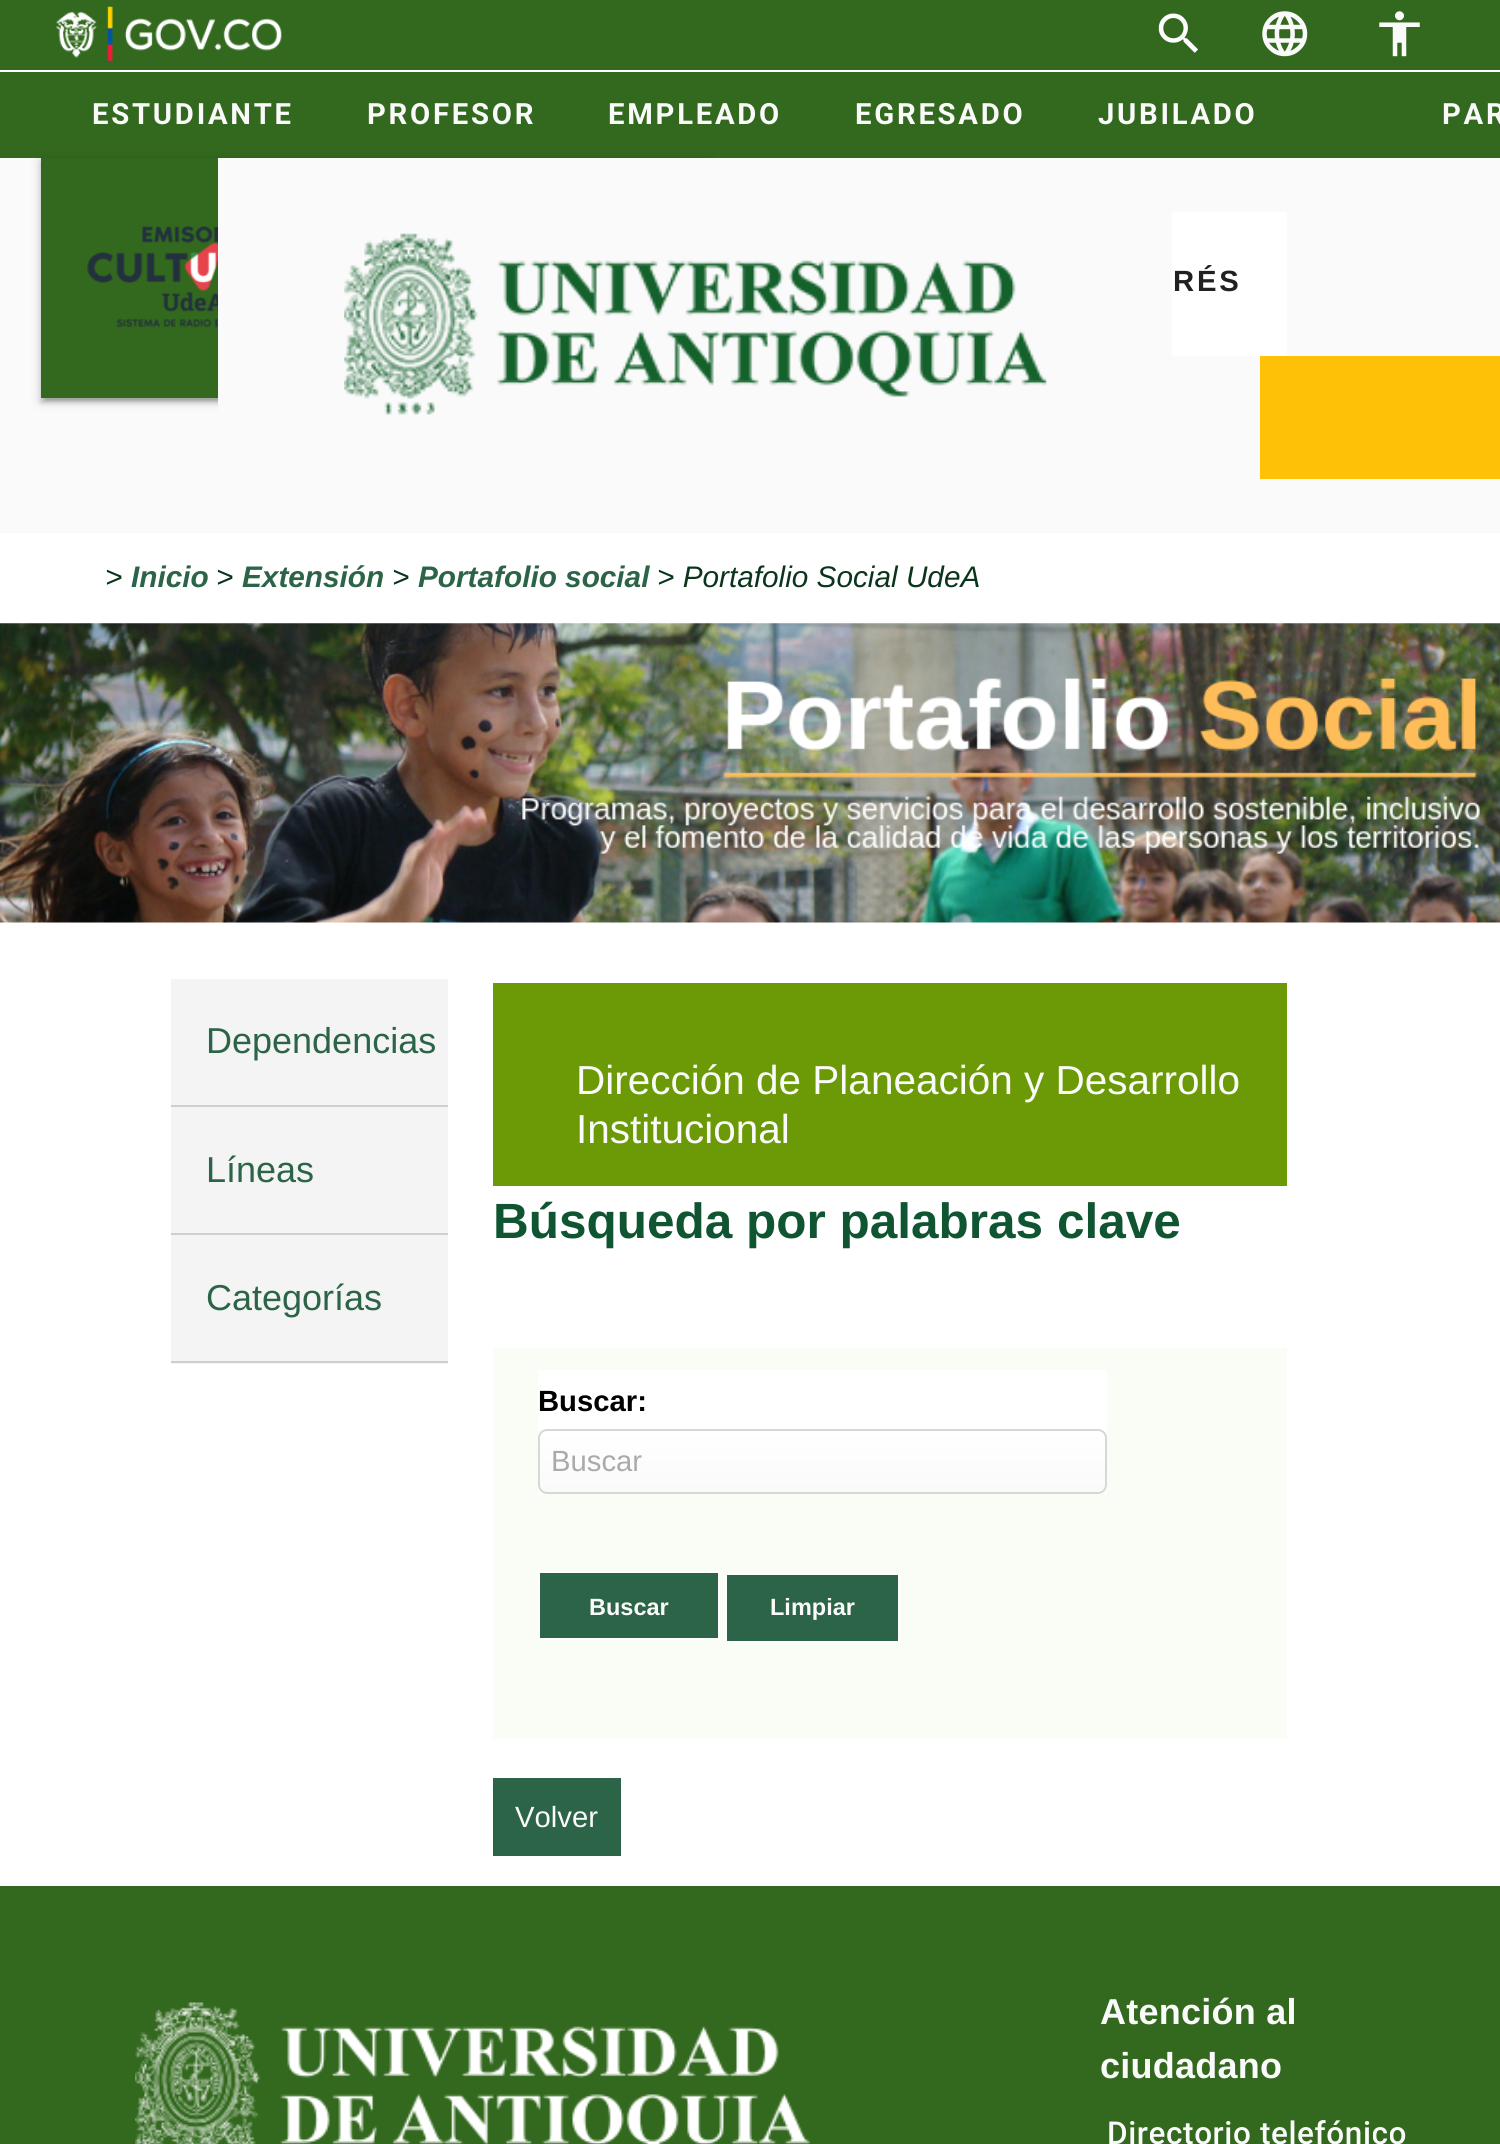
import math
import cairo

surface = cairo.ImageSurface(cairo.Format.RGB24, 1500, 2144)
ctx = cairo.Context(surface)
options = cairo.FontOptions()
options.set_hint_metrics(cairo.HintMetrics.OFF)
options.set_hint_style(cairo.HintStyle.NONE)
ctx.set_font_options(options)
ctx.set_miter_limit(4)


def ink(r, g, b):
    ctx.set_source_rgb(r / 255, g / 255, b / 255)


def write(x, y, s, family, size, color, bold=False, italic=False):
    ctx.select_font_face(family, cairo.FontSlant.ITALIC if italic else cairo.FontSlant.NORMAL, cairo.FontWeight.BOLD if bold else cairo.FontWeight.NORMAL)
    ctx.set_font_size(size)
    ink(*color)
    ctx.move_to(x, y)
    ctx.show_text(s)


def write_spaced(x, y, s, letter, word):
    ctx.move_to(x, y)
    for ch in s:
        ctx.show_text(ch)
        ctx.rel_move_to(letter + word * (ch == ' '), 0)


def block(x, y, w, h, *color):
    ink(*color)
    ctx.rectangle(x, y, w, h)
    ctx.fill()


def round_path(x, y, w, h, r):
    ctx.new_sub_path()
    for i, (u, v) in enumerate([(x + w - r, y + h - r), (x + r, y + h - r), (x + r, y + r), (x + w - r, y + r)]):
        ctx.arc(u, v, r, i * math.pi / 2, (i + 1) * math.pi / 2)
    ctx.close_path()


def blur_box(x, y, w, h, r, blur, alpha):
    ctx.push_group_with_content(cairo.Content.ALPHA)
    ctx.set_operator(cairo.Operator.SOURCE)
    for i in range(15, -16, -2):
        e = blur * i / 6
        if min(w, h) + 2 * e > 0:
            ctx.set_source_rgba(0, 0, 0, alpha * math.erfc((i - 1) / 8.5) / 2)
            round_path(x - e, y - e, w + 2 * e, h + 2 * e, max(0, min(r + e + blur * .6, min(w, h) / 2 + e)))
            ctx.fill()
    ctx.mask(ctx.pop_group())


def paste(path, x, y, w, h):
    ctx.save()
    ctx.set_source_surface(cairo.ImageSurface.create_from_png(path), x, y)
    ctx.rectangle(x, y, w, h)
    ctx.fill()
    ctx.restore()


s1 = dict(family="Liberation Sans", size=29.75, color=(10, 53, 28), italic=True)
s2 = dict(family="Liberation Sans", size=29.75, color=(43, 100, 71), bold=True, italic=True)
s3 = dict(family="Liberation Sans", size=36, color=(43, 100, 71))
s4 = dict(family="Liberation Sans", size=40.5, color=(250, 250, 250))
s5 = dict(family="Liberation Sans", size=49.5, color=(15, 85, 49), bold=True)
s6 = dict(family="Liberation Sans", size=29.25, color=(0, 0, 0), bold=True)
s7 = dict(family="Liberation Sans", size=29.25, color=(170, 170, 170))
s8 = dict(family="Liberation Sans", size=23.5, color=(250, 250, 250), bold=True)
s9 = dict(family="Liberation Sans", size=29.25, color=(250, 250, 250))

ink(255, 255, 255)
ctx.paint()
block(0, 0, 1500, 70, 51, 105, 30)
paste("pic1.png", 56, 6, 226, 55)
paste("pic2.png", 1158, 13, 40, 40)
paste("pic3.png", 1262, 11, 46, 46)
paste("pic4.png", 1379, 11, 41, 46)
block(0, 72, 1500, 86, 51, 105, 30)
ctx.select_font_face("Roboto", cairo.FontSlant.NORMAL, cairo.FontWeight.BOLD)
ctx.set_font_size(29.25)
ink(250, 250, 250)
write_spaced(92, 124, "ESTUDIANTE", 2.75, 0)
write_spaced(367, 124, "PROFESOR", 2.75, 0)
write_spaced(608, 124, "EMPLEADO", 2.75, 0)
write_spaced(855, 124, "EGRESADO", 2.75, 0)
write_spaced(1098, 124, "JUBILADO", 2.75, 0)
write_spaced(1442, 124, "PAR", 2.75, 0)
block(0, 158, 1500, 375, 250, 250, 250)
ink(0, 0, 0)
blur_box(41, 160, 670, 241, 0, 5.5, 0.2)
blur_box(45, 169, 662, 232, 0, 1, 0.12)
blur_box(41, 162, 670, 241, 0, 2, 0.14)
block(41, 158, 177, 240, 51, 105, 30)
paste("pic5.png", 87, 226, 131, 102)
ink(250, 250, 250)
ctx.new_path()
ctx.move_to(218, 158)
ctx.line_to(1172, 158)
ctx.line_to(1172, 432)
ctx.curve_to(1172, 444.5, 1161.5, 455, 1149, 455)
ctx.line_to(241, 455)
ctx.curve_to(228.5, 455, 218, 444.5, 218, 432)
ctx.close_path()
ctx.fill()
paste("pic6.png", 344, 233, 703, 182)
block(1172, 212, 115, 144, 255, 255, 255)
ctx.select_font_face("Liberation Sans", cairo.FontSlant.NORMAL, cairo.FontWeight.BOLD)
ink(33, 33, 33)
write_spaced(1173, 291, "RÉS", 2.75, 0)
block(1260, 356, 240, 123, 255, 193, 7)
write(105, 587, ">", **s1)
write(131, 587, "Inicio", **s2)
write(216, 587, ">", **s1)
write(242, 587, "Extensión", **s2)
write(392, 587, ">", **s1)
write(418, 587, "Portafolio social", **s2)
write(657, 587, "> Portafolio Social UdeA", **s1)
paste("pic7.png", 0, 623, 1500, 300)
block(171, 979, 277, 126, 244, 244, 244)
block(171, 1105, 277, 2, 206, 206, 206)
write(206, 1053, "Dependencias", **s3)
block(171, 1107, 277, 126, 244, 244, 244)
block(171, 1233, 277, 2, 206, 206, 206)
write(206, 1182, "Líneas", **s3)
block(171, 1235, 277, 129, 244, 244, 244)
block(171, 1361, 277, 2, 206, 206, 206)
write(206, 1310, "Categorías", **s3)
block(493, 983, 794, 203, 108, 154, 6)
write(576, 1094, "Dirección de Planeación y Desarrollo", **s4)
write(576, 1143, "Institucional", **s4)
write(493, 1238, "Búsqueda por palabras clave", **s5)
block(493, 1348, 794, 391, 250, 252, 246)
block(538, 1370, 569, 124, 255, 255, 255)
write(538, 1411, "Buscar:", **s6)
ctx.save()
round_path(538, 1429, 569, 65, 9)
ctx.clip()
gradient = cairo.LinearGradient(822, 1431, 822, 1492)
gradient.add_color_stop_rgba(0, 1, 1, 1, 1)
gradient.add_color_stop_rgba(1, 0.98, 0.98, 0.98, 1)
ctx.set_source(gradient)
ctx.rectangle(538, 1431, 569, 61)
ctx.fill()
ctx.restore()
round_path(539, 1430, 567, 63, 8)
ink(215, 215, 215)
ctx.stroke()
write(551, 1471, "Buscar", **s7)
ink(43, 100, 71)
ctx.rectangle(539, 1572, 180, 67)
ctx.fill_preserve()
ink(255, 255, 255)
ctx.stroke()
write(589, 1615, "Buscar", **s8)
ink(43, 100, 71)
ctx.rectangle(726, 1574, 173, 68)
ctx.fill_preserve()
ink(255, 255, 255)
ctx.stroke()
write(770, 1615, "Limpiar", **s8)
block(493, 1778, 128, 78, 44, 100, 71)
write(515, 1827, "Volver", **s9)
block(0, 1886, 1500, 258, 51, 105, 30)
paste("pic8.png", 135, 2002, 675, 142)
ctx.select_font_face("Liberation Sans", cairo.FontSlant.NORMAL, cairo.FontWeight.BOLD)
ctx.set_font_size(36)
ink(250, 250, 250)
write_spaced(1100, 2024, "Atención al", 0.25, 0)
write_spaced(1100, 2078, "ciudadano", 0.25, 0)
ctx.select_font_face("Roboto Medium")
ctx.set_font_size(31.5)
write_spaced(1107, 2144, "Directorio telefónico", 0.6, 0)
surface.write_to_png("screenshot.png")
